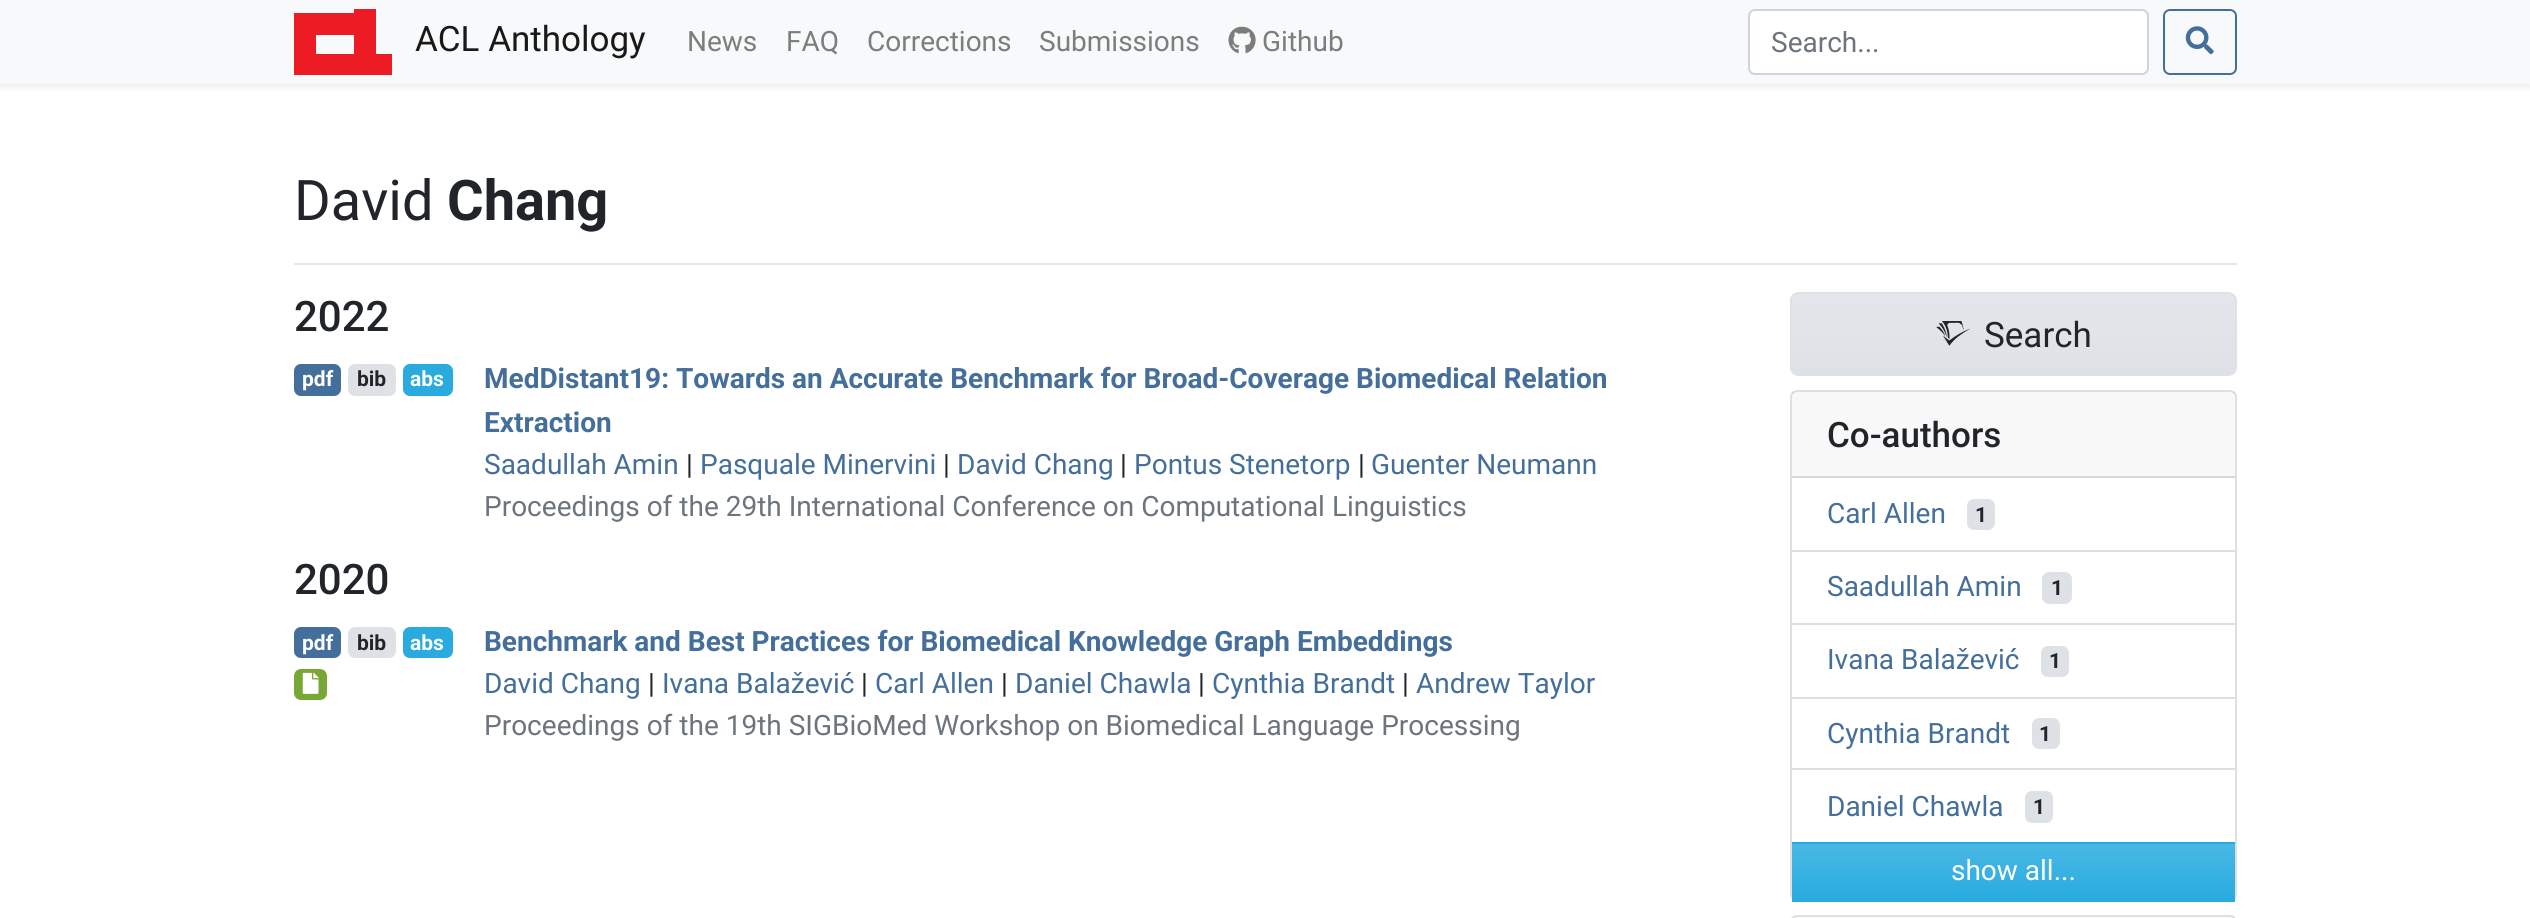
import math
import cairo

surface = cairo.ImageSurface(cairo.Format.RGB24, 2530, 918)
ctx = cairo.Context(surface)
options = cairo.FontOptions()
options.set_hint_metrics(cairo.HintMetrics.OFF)
options.set_hint_style(cairo.HintStyle.NONE)
ctx.set_font_options(options)
ctx.set_miter_limit(4)


def ink(r, g, b):
    ctx.set_source_rgb(r / 255, g / 255, b / 255)


def write(x, y, s, family, size, color, bold=False, italic=False):
    ctx.select_font_face(family, cairo.FontSlant.ITALIC if italic else cairo.FontSlant.NORMAL, cairo.FontWeight.BOLD if bold else cairo.FontWeight.NORMAL)
    ctx.set_font_size(size)
    ink(*color)
    ctx.move_to(x, y)
    ctx.show_text(s)


def block(x, y, w, h, *color):
    ink(*color)
    ctx.rectangle(x, y, w, h)
    ctx.fill()


def round_path(x, y, w, h, r):
    ctx.new_sub_path()
    for i, (u, v) in enumerate([(x + w - r, y + h - r), (x + r, y + h - r), (x + r, y + r), (x + w - r, y + r)]):
        ctx.arc(u, v, r, i * math.pi / 2, (i + 1) * math.pi / 2)
    ctx.close_path()


def blur_box(x, y, w, h, r, blur, alpha):
    ctx.push_group_with_content(cairo.Content.ALPHA)
    ctx.set_operator(cairo.Operator.SOURCE)
    for i in range(15, -16, -2):
        e = blur * i / 6
        if min(w, h) + 2 * e > 0:
            ctx.set_source_rgba(0, 0, 0, alpha * math.erfc((i - 1) / 8.5) / 2)
            round_path(x - e, y - e, w + 2 * e, h + 2 * e, max(0, min(r + e + blur * .6, min(w, h) / 2 + e)))
            ctx.fill()
    ctx.mask(ctx.pop_group())


def paste(path, x, y, w, h):
    ctx.save()
    ctx.set_source_surface(cairo.ImageSurface.create_from_png(path), x, y)
    ctx.rectangle(x, y, w, h)
    ctx.fill()
    ctx.restore()


s1 = dict(family="Roboto", size=35, color=(25, 25, 25))
s2 = dict(family="Roboto", size=28, color=(124, 125, 125))
s3 = dict(family="Roboto", size=28, color=(108, 117, 125))
s4 = dict(family="Roboto", size=56, color=(33, 37, 41))
s5 = dict(family="Roboto", size=56, color=(33, 37, 41), bold=True)
s6 = dict(family="Roboto Medium", size=42, color=(33, 37, 41))
s7 = dict(family="Roboto", size=21, color=(255, 255, 255), bold=True)
s8 = dict(family="Roboto", size=21, color=(33, 37, 41), bold=True)
s9 = dict(family="Roboto", size=28, color=(68, 110, 155), bold=True)
s10 = dict(family="Roboto", size=28, color=(68, 110, 155))
s11 = dict(family="Roboto", size=28, color=(33, 37, 41))
s12 = dict(family="Roboto", size=35, color=(33, 37, 41))
s13 = dict(family="Roboto Medium", size=35, color=(33, 37, 41))
s14 = dict(family="Roboto", size=28, color=(255, 255, 255))

ink(255, 255, 255)
ctx.paint()
ink(0, 0, 0)
blur_box(0, 4, 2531, 84, 0, 3.5, 0.07)
block(0, 0, 2530, 84, 248, 249, 250)
ink(237, 28, 36)
ctx.set_fill_rule(cairo.FillRule.EVEN_ODD)
ctx.new_path()
ctx.move_to(354, 9)
ctx.line_to(354, 13)
ctx.line_to(294, 13)
ctx.line_to(294, 75)
ctx.line_to(392, 75)
ctx.line_to(392, 54)
ctx.line_to(376, 54)
ctx.line_to(376, 9)
ctx.close_path()
ctx.move_to(316, 35)
ctx.line_to(354, 35)
ctx.line_to(354, 54)
ctx.line_to(316, 54)
ctx.close_path()
ctx.fill()
write(415, 51, "ACL Anthology", **s1)
write(687, 51, "News", **s2)
write(786, 51, "FAQ", **s2)
write(867, 51, "Corrections", **s2)
write(1039, 51, "Submissions", **s2)
paste("pic1.png", 1228, 26, 28, 28)
write(1262, 51, "Github", **s2)
ink(255, 255, 255)
round_path(1749, 10, 399, 64, 6)
ctx.fill_preserve()
ink(206, 212, 218)
ctx.stroke()
write(1771, 52, "Search...", **s3)
round_path(2164, 10, 72, 64, 6)
ink(68, 110, 155)
ctx.stroke()
paste("pic2.png", 2185, 26, 29, 29)
write(294, 220, "David", **s4)
write(447, 220, "Chang", **s5)
block(294, 263, 1943, 2, 230, 230, 230)
write(294, 331, "2022", **s6)
ink(68, 110, 155)
round_path(294, 364, 47, 32, 7)
ctx.fill()
write(302, 386, "pdf", **s7)
ink(222, 226, 230)
round_path(348, 364, 48, 32, 7)
ctx.fill()
write(357, 386, "bib", **s8)
ink(41, 171, 224)
round_path(403, 364, 50, 32, 7)
ctx.fill()
write(410, 386, "abs", **s7)
write(484, 388, "MedDistant19: Towards an Accurate Benchmark for Broad-Coverage Biomedical Relation", **s9)
write(484, 432, "Extraction", **s9)
write(484, 474, "Saadullah Amin", **s10)
write(686, 474, "|", **s11)
write(700, 474, "Pasquale Minervini", **s10)
write(943, 474, "|", **s11)
write(957, 474, "David Chang", **s10)
write(1120, 474, "|", **s11)
write(1134, 474, "Pontus Stenetorp", **s10)
write(1358, 474, "|", **s11)
write(1371, 474, "Guenter Neumann", **s10)
write(484, 516, "Proceedings of the 29th International Conference on Computational Linguistics", **s3)
write(294, 594, "2020", **s6)
ink(68, 110, 155)
round_path(294, 627, 47, 31, 7)
ctx.fill()
write(302, 650, "pdf", **s7)
ink(222, 226, 230)
round_path(348, 627, 48, 31, 7)
ctx.fill()
write(357, 650, "bib", **s8)
ink(41, 171, 224)
round_path(403, 627, 50, 31, 7)
ctx.fill()
write(410, 650, "abs", **s7)
ink(121, 167, 54)
round_path(294, 669, 33, 31, 7)
ctx.fill()
paste("pic3.png", 302, 672, 17, 22)
write(484, 651, "Benchmark and Best Practices for Biomedical Knowledge Graph Embeddings", **s9)
write(484, 693, "David Chang", **s10)
write(648, 693, "|", **s11)
write(662, 693, "Ivana Balažević", **s10)
write(861, 693, "|", **s11)
write(875, 693, "Carl Allen", **s10)
write(1001, 693, "|", **s11)
write(1015, 693, "Daniel Chawla", **s10)
write(1198, 693, "|", **s11)
write(1212, 693, "Cynthia Brandt", **s10)
write(1402, 693, "|", **s11)
write(1416, 693, "Andrew Taylor", **s10)
write(484, 735, "Proceedings of the 19th SIGBioMed Workshop on Biomedical Language Processing", **s3)
ctx.save()
ctx.set_fill_rule(cairo.FillRule.WINDING)
round_path(1790, 292, 447, 84, 9)
ctx.clip()
gradient = cairo.LinearGradient(2013, 294, 2013, 375)
gradient.add_color_stop_rgba(0, 0.89, 0.902, 0.918, 1)
gradient.add_color_stop_rgba(1, 0.871, 0.886, 0.902, 1)
ctx.set_source(gradient)
ctx.rectangle(1790, 294, 447, 81)
ctx.fill()
ctx.restore()
round_path(1791, 293, 445, 82, 8)
ink(222, 226, 230)
ctx.stroke()
paste("pic4.png", 1936, 321, 34, 25)
write(1984, 347, "Search", **s12)
round_path(1791, 391, 445, 509, 6)
ink(223, 223, 223)
ctx.stroke()
ctx.set_source_rgba(0, 0, 0, 0.03)
ctx.rectangle(1792, 392, 443, 84)
ctx.fill()
block(1792, 476, 443, 2, 216, 216, 216)
write(1827, 447, "Co-authors", **s13)
write(1827, 523, "Carl Allen", **s10)
ink(222, 226, 230)
round_path(1967, 499, 28, 31, 7)
ctx.fill()
write(1975, 522, "1", **s8)
block(1792, 550, 443, 2, 223, 223, 223)
write(1827, 596, "Saadullah Amin", **s10)
ink(222, 226, 230)
round_path(2042, 572, 30, 32, 7)
ctx.fill()
write(2051, 595, "1", **s8)
block(1792, 623, 443, 2, 223, 223, 223)
write(1827, 669, "Ivana Balažević", **s10)
ink(222, 226, 230)
round_path(2041, 646, 28, 31, 7)
ctx.fill()
write(2049, 668, "1", **s8)
block(1792, 697, 443, 2, 223, 223, 223)
write(1827, 743, "Cynthia Brandt", **s10)
ink(222, 226, 230)
round_path(2032, 718, 28, 31, 7)
ctx.fill()
write(2039, 741, "1", **s8)
block(1792, 768, 443, 2, 223, 223, 223)
write(1827, 816, "Daniel Chawla", **s10)
ink(222, 226, 230)
round_path(2025, 791, 28, 32, 7)
ctx.fill()
write(2033, 814, "1", **s8)
block(1792, 842, 443, 2, 41, 171, 224)
gradient = cairo.LinearGradient(2013, 844, 2013, 900)
gradient.add_color_stop_rgba(0, 0.286, 0.722, 0.898, 1)
gradient.add_color_stop_rgba(1, 0.161, 0.671, 0.878, 1)
ctx.set_source(gradient)
ctx.rectangle(1792, 844, 443, 56)
ctx.fill()
block(1792, 900, 443, 2, 41, 171, 224)
write(1951, 880, "show all...", **s14)
round_path(1791, 916, 445, 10, 6)
ink(223, 223, 223)
ctx.stroke()
ctx.set_source_rgba(0, 0, 0, 0.03)
ctx.rectangle(1792, 917, 443, 1)
ctx.fill()
surface.write_to_png("screenshot.png")
